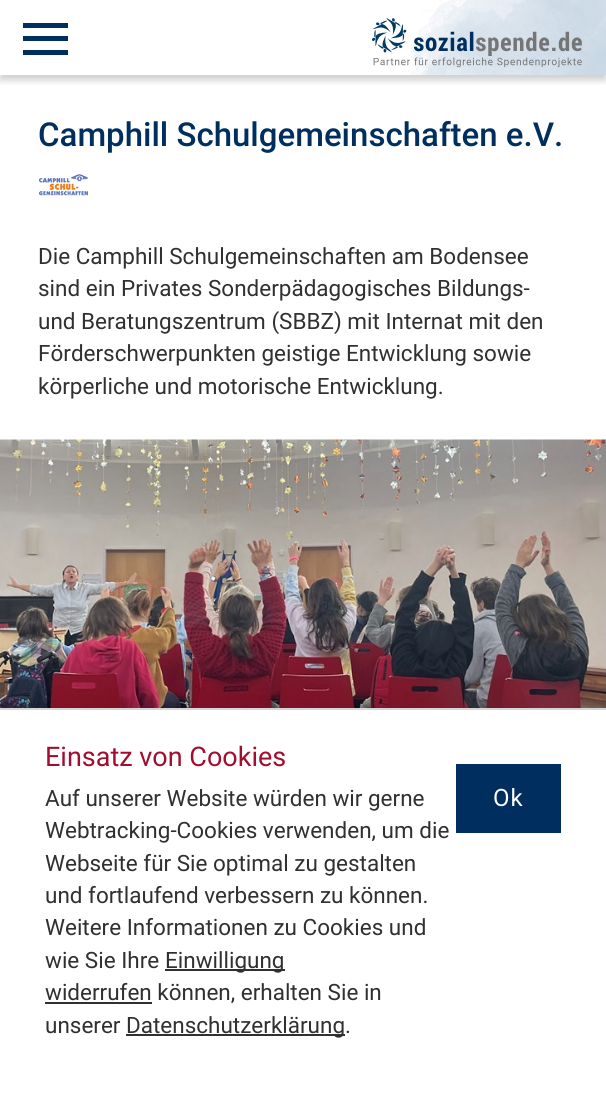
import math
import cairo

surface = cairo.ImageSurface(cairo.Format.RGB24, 606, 1108)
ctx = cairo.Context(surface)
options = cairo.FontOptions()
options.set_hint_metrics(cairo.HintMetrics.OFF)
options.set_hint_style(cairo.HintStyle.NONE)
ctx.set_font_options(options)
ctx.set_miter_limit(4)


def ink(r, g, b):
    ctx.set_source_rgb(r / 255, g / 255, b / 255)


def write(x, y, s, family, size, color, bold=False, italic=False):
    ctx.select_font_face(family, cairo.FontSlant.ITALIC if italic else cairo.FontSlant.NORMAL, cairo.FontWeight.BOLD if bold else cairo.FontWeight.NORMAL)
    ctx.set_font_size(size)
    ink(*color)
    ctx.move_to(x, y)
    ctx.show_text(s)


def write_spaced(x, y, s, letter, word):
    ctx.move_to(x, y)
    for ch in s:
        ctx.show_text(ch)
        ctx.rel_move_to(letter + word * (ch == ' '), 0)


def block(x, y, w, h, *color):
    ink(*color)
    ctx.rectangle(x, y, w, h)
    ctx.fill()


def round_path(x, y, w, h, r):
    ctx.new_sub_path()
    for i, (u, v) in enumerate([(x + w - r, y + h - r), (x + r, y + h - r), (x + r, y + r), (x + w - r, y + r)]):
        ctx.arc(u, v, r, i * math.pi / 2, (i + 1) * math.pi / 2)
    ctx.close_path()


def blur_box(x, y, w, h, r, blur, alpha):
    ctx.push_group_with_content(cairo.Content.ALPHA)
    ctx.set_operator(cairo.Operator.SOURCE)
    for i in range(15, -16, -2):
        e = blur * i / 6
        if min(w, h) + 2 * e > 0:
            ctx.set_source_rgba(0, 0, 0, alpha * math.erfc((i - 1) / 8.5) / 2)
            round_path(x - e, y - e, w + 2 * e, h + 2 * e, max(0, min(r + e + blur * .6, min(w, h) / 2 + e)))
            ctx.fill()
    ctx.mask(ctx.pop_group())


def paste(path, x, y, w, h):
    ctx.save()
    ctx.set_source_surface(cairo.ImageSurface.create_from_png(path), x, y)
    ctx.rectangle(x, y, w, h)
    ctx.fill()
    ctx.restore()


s1 = dict(family="Roboto Medium", size=33, color=(0, 47, 95))
s2 = dict(family="Roboto", size=22.5, color=(48, 48, 48))
s3 = dict(family="Roboto", size=27, color=(161, 14, 47))

ink(255, 255, 255)
ctx.paint()
ctx.save()
ctx.rectangle(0, 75, 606, 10)
ctx.clip()
ink(0, 0, 0)
blur_box(0, 5, 606, 75, 0, 4, 0.2)
ctx.restore()
paste("pic1.png", 410, 0, 196, 75)
block(23, 23, 45, 5, 0, 47, 95)
block(23, 36, 45, 5, 0, 47, 95)
block(23, 50, 45, 5, 0, 47, 95)
paste("pic2.png", 372, 18, 210, 50)
write(38, 146, "Camphill Schulgemeinschaften e.V.", **s1)
paste("pic3.png", 39, 173, 49, 23)
write(38, 264, "Die Camphill Schulgemeinschaften am Bodensee", **s2)
write(38, 296, "sind ein Privates Sonderpädagogisches Bildungs-", **s2)
write(38, 329, "und Beratungszentrum (SBBZ) mit Internat mit den", **s2)
write(38, 361, "Förderschwerpunkten geistige Entwicklung sowie", **s2)
write(38, 394, "körperliche und motorische Entwicklung.", **s2)
paste("pic4.png", 0, 439, 606, 269)
block(0, 708, 606, 2, 214, 214, 214)
write(45, 766, "Einsatz von Cookies", **s3)
write(45, 806, "Auf unserer Website würden wir gerne", **s2)
write(45, 838, "Webtracking-Cookies verwenden, um die", **s2)
write(45, 871, "Webseite für Sie optimal zu gestalten", **s2)
write(45, 903, "und fortlaufend verbessern zu können.", **s2)
write(45, 935, "Weitere Informationen zu Cookies und", **s2)
write(45, 968, "wie Sie Ihre", **s2)
block(165, 969, 120, 2, 48, 48, 48)
write(165, 968, "Einwilligung", **s2)
block(45, 1002, 107, 2, 48, 48, 48)
write(45, 1000, "widerrufen können, erhalten Sie in", **s2)
write(45, 1033, "unserer", **s2)
block(126, 1034, 219, 2, 48, 48, 48)
write(126, 1033, "Datenschutzerklärung.", **s2)
block(456, 764, 105, 69, 0, 47, 95)
ctx.set_font_size(24)
ink(255, 255, 255)
write_spaced(493, 806, "Ok", 1, 0)
surface.write_to_png("screenshot.png")
